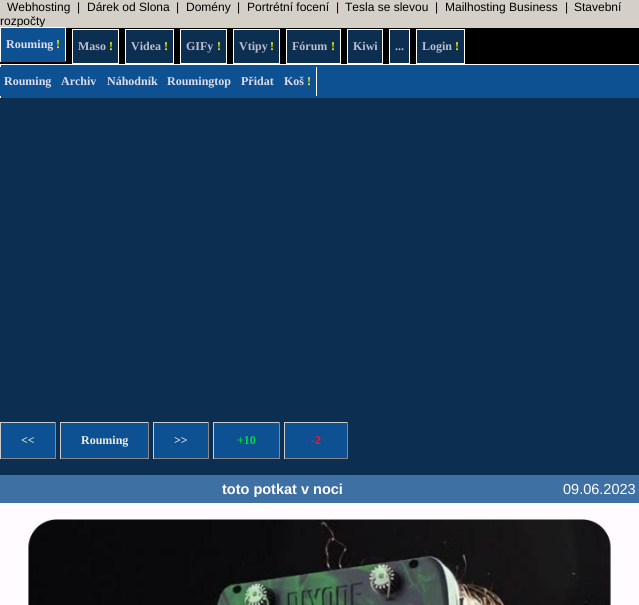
import math
import cairo

surface = cairo.ImageSurface(cairo.Format.RGB24, 639, 605)
ctx = cairo.Context(surface)
options = cairo.FontOptions()
options.set_hint_metrics(cairo.HintMetrics.OFF)
options.set_hint_style(cairo.HintStyle.NONE)
ctx.set_font_options(options)
ctx.set_miter_limit(4)


def ink(r, g, b):
    ctx.set_source_rgb(r / 255, g / 255, b / 255)


def write(x, y, s, family, size, color, bold=False, italic=False):
    ctx.select_font_face(family, cairo.FontSlant.ITALIC if italic else cairo.FontSlant.NORMAL, cairo.FontWeight.BOLD if bold else cairo.FontWeight.NORMAL)
    ctx.set_font_size(size)
    ink(*color)
    ctx.move_to(x, y)
    ctx.show_text(s)


def block(x, y, w, h, *color):
    ink(*color)
    ctx.rectangle(x, y, w, h)
    ctx.fill()


def paste(path, x, y, w, h):
    ctx.save()
    ctx.set_source_surface(cairo.ImageSurface.create_from_png(path), x, y)
    ctx.rectangle(x, y, w, h)
    ctx.fill()
    ctx.restore()


s1 = dict(family="Liberation Sans", size=12, color=(0, 0, 0))
s2 = dict(family="Liberation Serif", size=12, color=(221, 221, 238), bold=True)
s3 = dict(family="Liberation Serif", size=12, color=(255, 255, 0), bold=True)
s4 = dict(family="Liberation Serif", size=12, color=(189, 189, 206), bold=True)
s5 = dict(family="Liberation Serif", size=12, color=(238, 238, 221), bold=True)
s6 = dict(family="Liberation Serif", size=12, color=(0, 221, 51), bold=True)
s7 = dict(family="Liberation Serif", size=12, color=(255, 17, 51), bold=True)
s8 = dict(family="Liberation Sans", size=14.5, color=(254, 254, 255), bold=True)
s9 = dict(family="Liberation Sans", size=14.5, color=(254, 254, 255))

ink(12, 46, 81)
ctx.paint()
block(0, 0, 639, 28, 212, 208, 200)
write(7, 11, "Webhosting", **s1)
write(77, 11, "|", **s1)
write(87, 11, "Dárek od Slona", **s1)
write(176, 11, "|", **s1)
write(186, 11, "Domény", **s1)
write(237, 11, "|", **s1)
write(247, 11, "Portrétní focení", **s1)
write(336, 11, "|", **s1)
write(345, 11, "Tesla se slevou", **s1)
write(435, 11, "|", **s1)
write(445, 11, "Mailhosting Business", **s1)
write(565, 11, "|", **s1)
write(574, 11, "Stavební", **s1)
write(0, 25, "rozpočty", **s1)
block(0, 28, 639, 36, 0, 0, 0)
block(0, 64, 639, 1, 255, 255, 255)
block(1, 28, 64, 33, 14, 81, 147)
block(0, 27, 66, 1, 255, 255, 255)
block(65, 27, 1, 35, 255, 255, 255)
block(0, 61, 66, 1, 14, 81, 147)
block(0, 27, 1, 35, 255, 255, 255)
write(6, 48, "Rouming", **s2)
write(56, 48, "!", **s3)
ink(12, 46, 81)
ctx.rectangle(72.5, 29.5, 46, 34)
ctx.fill_preserve()
ink(255, 255, 255)
ctx.set_line_width(1)
ctx.stroke()
write(78, 50, "Maso", **s4)
write(109, 50, "!", **s3)
ink(12, 46, 81)
ctx.rectangle(125.5, 29.5, 48, 34)
ctx.fill_preserve()
ink(255, 255, 255)
ctx.stroke()
write(131, 50, "Videa", **s4)
write(164, 50, "!", **s3)
ink(12, 46, 81)
ctx.rectangle(180.5, 29.5, 46, 34)
ctx.fill_preserve()
ink(255, 255, 255)
ctx.stroke()
write(186, 50, "GIFy", **s4)
write(217, 50, "!", **s3)
ink(12, 46, 81)
ctx.rectangle(233.5, 29.5, 46, 34)
ctx.fill_preserve()
ink(255, 255, 255)
ctx.stroke()
write(239, 50, "Vtipy", **s4)
write(270, 50, "!", **s3)
ink(12, 46, 81)
ctx.rectangle(286.5, 29.5, 54, 34)
ctx.fill_preserve()
ink(255, 255, 255)
ctx.stroke()
write(292, 50, "Fórum", **s4)
write(331, 50, "!", **s3)
ink(12, 46, 81)
ctx.rectangle(347.5, 29.5, 35, 34)
ctx.fill_preserve()
ink(255, 255, 255)
ctx.stroke()
write(353, 50, "Kiwi", **s4)
ink(12, 46, 81)
ctx.rectangle(389.5, 29.5, 20, 34)
ctx.fill_preserve()
ink(255, 255, 255)
ctx.stroke()
write(395, 50, "...", **s4)
ink(12, 46, 81)
ctx.rectangle(416.5, 29.5, 48, 34)
ctx.fill_preserve()
ink(255, 255, 255)
ctx.stroke()
write(422, 50, "Login", **s4)
write(455, 50, "!", **s3)
block(1, 65, 638, 33, 14, 81, 147)
block(0, 65, 1, 33, 255, 255, 255)
block(0, 67, 1, 29, 14, 81, 147)
write(4, 85, "Rouming", **s2)
write(61, 85, "Archiv", **s2)
write(107, 85, "Náhodník", **s2)
write(167, 85, "Roumingtop", **s2)
write(241, 85, "Přidat", **s2)
block(316, 67, 1, 29, 255, 255, 255)
write(284, 85, "Koš", **s2)
write(307, 85, "!", **s3)
block(1, 423, 54, 35, 14, 81, 147)
block(0, 422, 56, 1, 204, 204, 204)
block(55, 422, 1, 37, 136, 136, 136)
block(0, 458, 56, 1, 136, 136, 136)
block(0, 422, 1, 37, 204, 204, 204)
write(21, 444, "<<", **s5)
block(61, 423, 87, 35, 14, 81, 147)
block(60, 422, 89, 1, 204, 204, 204)
block(148, 422, 1, 37, 136, 136, 136)
block(60, 458, 89, 1, 136, 136, 136)
block(60, 422, 1, 37, 204, 204, 204)
write(81, 444, "Rouming", **s5)
block(154, 423, 54, 35, 14, 81, 147)
block(153, 422, 56, 1, 204, 204, 204)
block(208, 422, 1, 37, 136, 136, 136)
block(153, 458, 56, 1, 136, 136, 136)
block(153, 422, 1, 37, 204, 204, 204)
write(174, 444, ">>", **s5)
block(214, 423, 65, 35, 14, 81, 147)
block(213, 422, 67, 1, 204, 204, 204)
block(279, 422, 1, 37, 136, 136, 136)
block(213, 458, 67, 1, 136, 136, 136)
block(213, 422, 1, 37, 204, 204, 204)
write(237, 444, "+10", **s6)
block(285, 423, 62, 35, 14, 81, 147)
block(284, 422, 64, 1, 204, 204, 204)
block(347, 422, 1, 37, 136, 136, 136)
block(284, 458, 64, 1, 136, 136, 136)
block(284, 422, 1, 37, 204, 204, 204)
write(311, 444, "-2", **s7)
block(0, 475, 639, 28, 63, 112, 163)
write(222, 494, "toto potkat v noci", **s8)
write(563, 494, "09.06.2023", **s9)
paste("pic1.png", 0, 503, 639, 102)
surface.write_to_png("screenshot.png")
